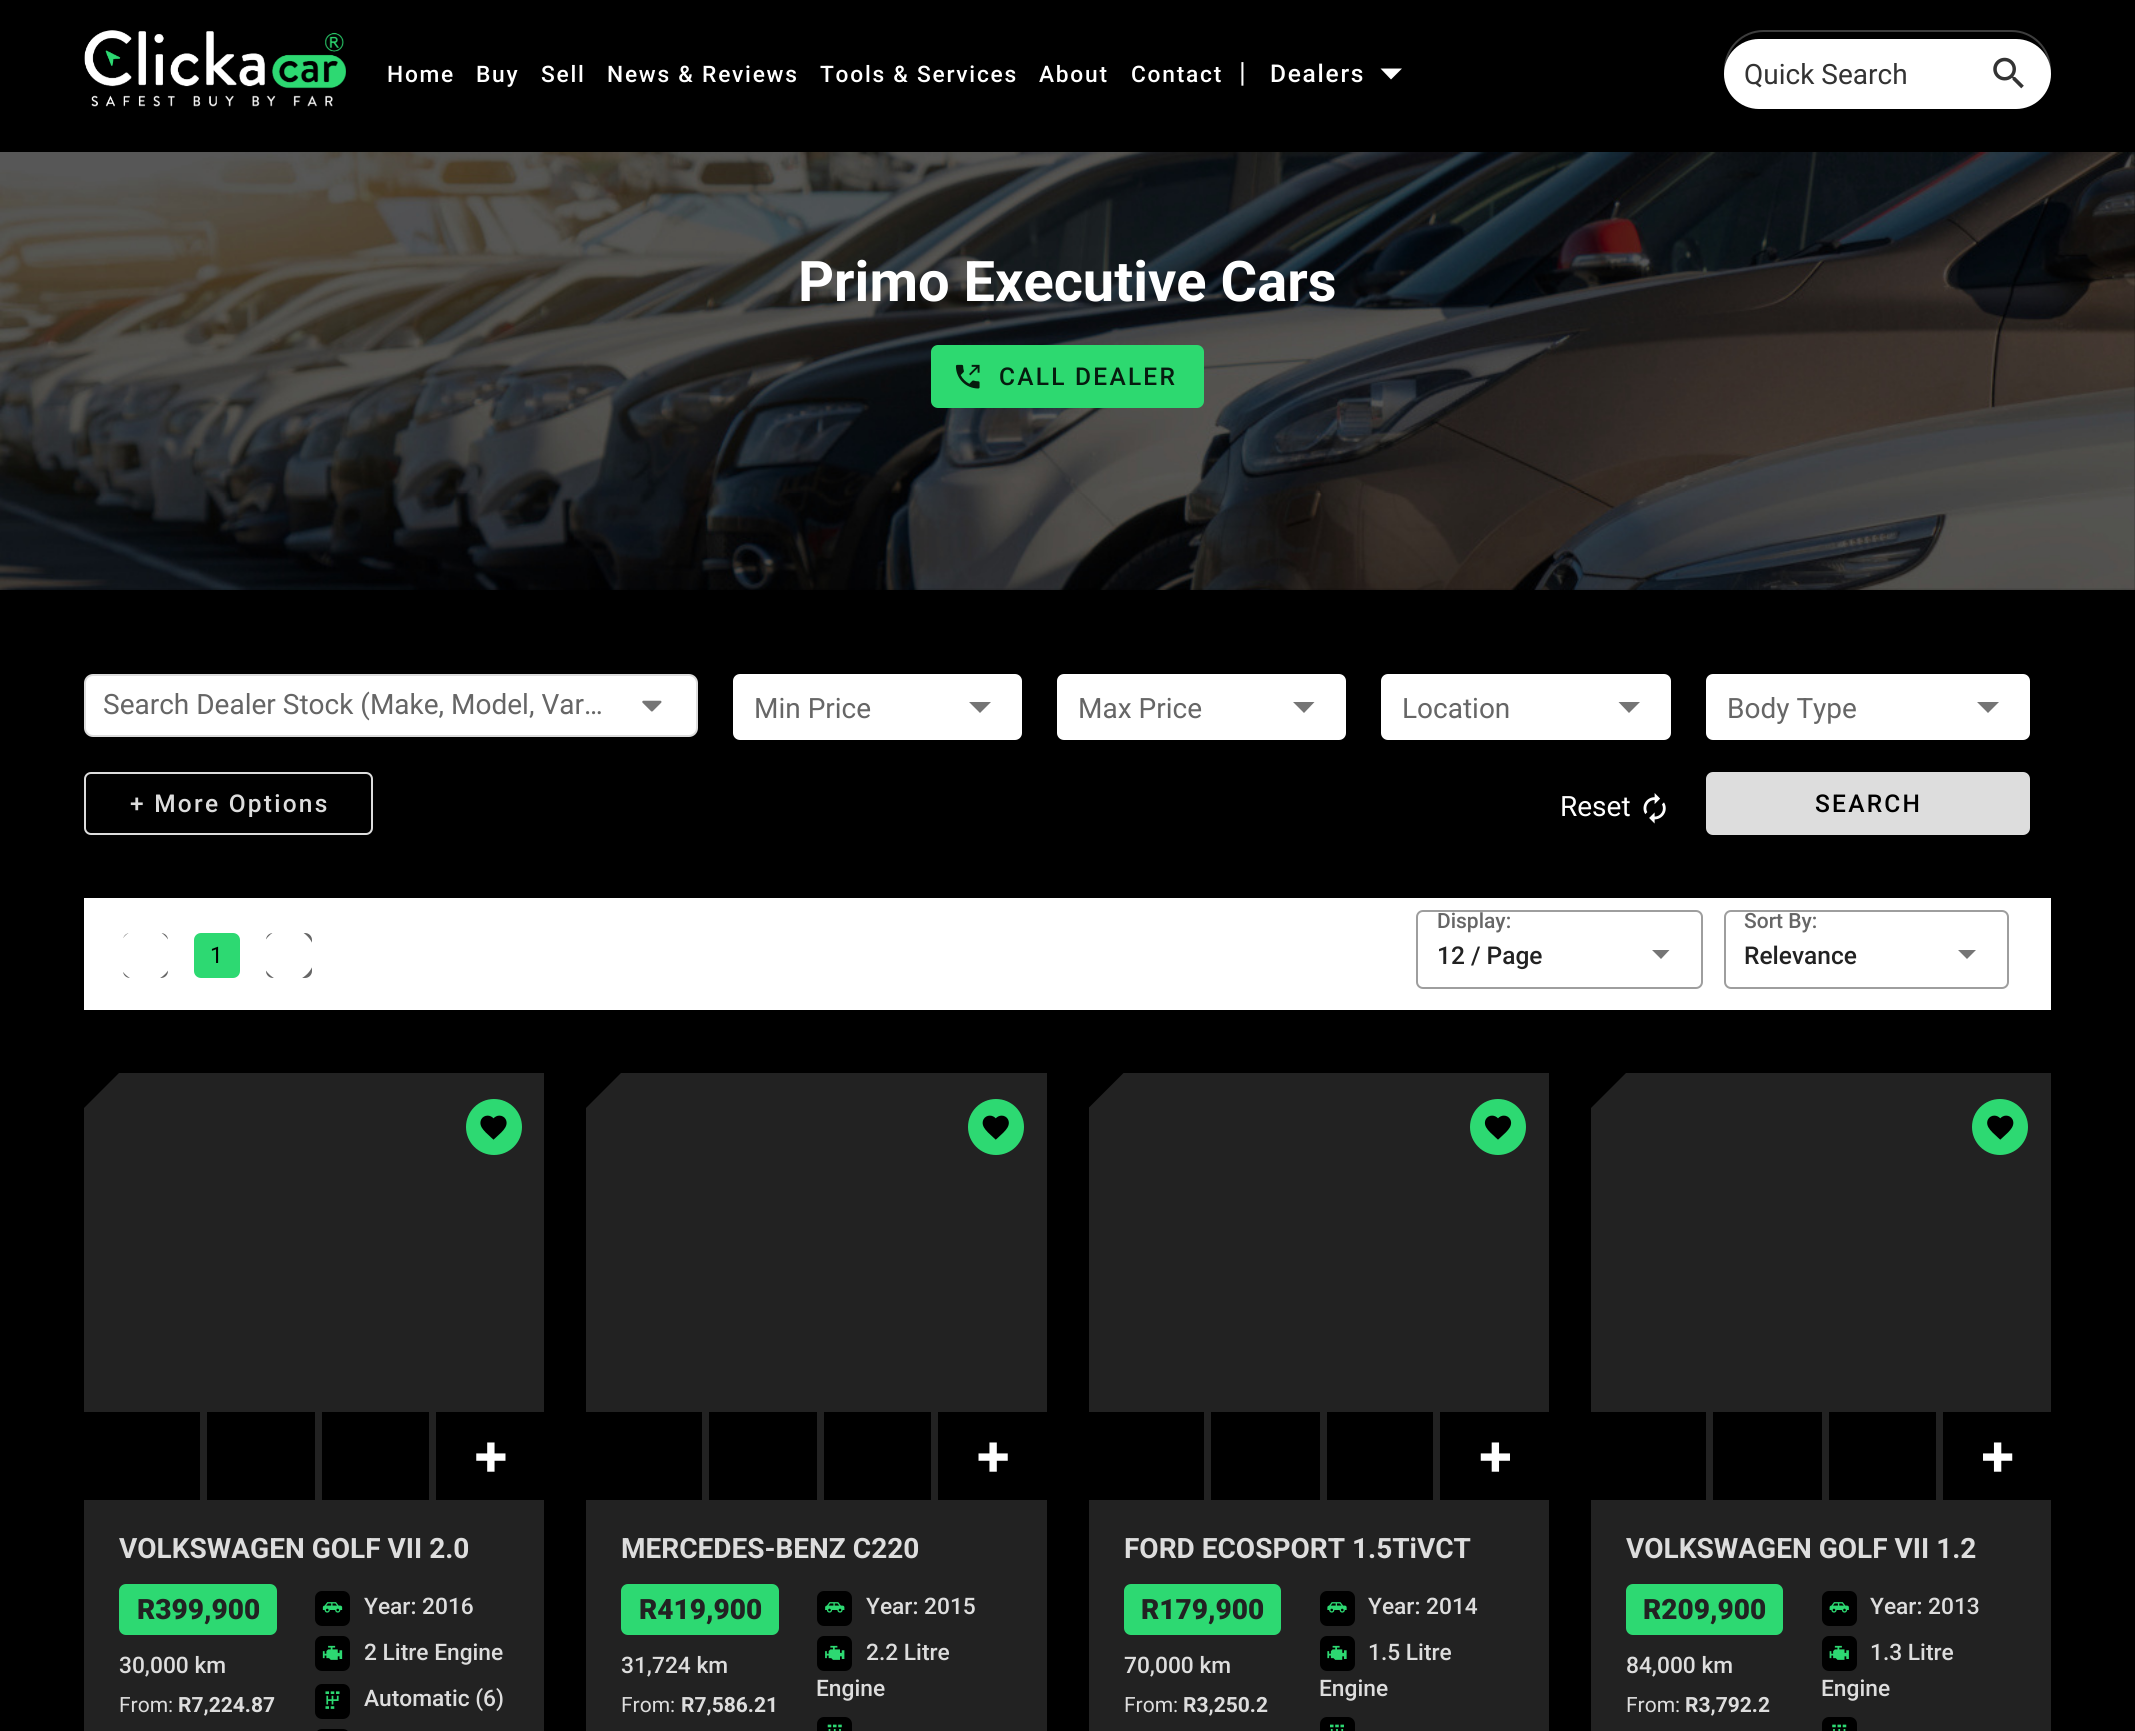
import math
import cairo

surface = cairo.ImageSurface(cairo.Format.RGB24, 2135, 1731)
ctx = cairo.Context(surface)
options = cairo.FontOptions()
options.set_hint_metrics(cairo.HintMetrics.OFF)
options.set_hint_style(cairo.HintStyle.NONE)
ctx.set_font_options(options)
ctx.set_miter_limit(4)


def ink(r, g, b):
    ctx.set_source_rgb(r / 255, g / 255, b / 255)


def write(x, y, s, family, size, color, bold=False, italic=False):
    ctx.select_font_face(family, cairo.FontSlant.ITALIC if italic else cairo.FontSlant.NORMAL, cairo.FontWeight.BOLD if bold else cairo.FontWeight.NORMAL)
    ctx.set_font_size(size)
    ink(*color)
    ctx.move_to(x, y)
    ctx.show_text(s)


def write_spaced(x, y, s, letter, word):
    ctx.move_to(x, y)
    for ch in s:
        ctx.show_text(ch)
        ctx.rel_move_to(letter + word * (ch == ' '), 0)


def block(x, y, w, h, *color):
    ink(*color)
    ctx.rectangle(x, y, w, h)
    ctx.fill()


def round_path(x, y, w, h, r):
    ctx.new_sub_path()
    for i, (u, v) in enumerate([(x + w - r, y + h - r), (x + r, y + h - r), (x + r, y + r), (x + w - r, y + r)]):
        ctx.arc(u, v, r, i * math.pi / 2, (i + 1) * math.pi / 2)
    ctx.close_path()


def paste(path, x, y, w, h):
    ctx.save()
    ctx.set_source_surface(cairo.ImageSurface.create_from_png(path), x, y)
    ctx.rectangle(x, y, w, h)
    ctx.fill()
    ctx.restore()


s1 = dict(family="Roboto", size=28, color=(255, 255, 255))
s2 = dict(family="Roboto", size=28, color=(51, 51, 51))
s3 = dict(family="Roboto", size=56, color=(255, 255, 255), bold=True)
s4 = dict(family="Roboto", size=28, color=(102, 102, 102))
s5 = dict(family="Roboto", size=22.75, color=(0, 0, 0))
s6 = dict(family="Roboto Medium", size=21, color=(102, 102, 102))
s7 = dict(family="Roboto Medium", size=24.5, color=(34, 34, 34))
s8 = dict(family="Roboto", size=28, color=(221, 221, 221), bold=True)
s9 = dict(family="Roboto Black", size=28, color=(34, 34, 34))
s10 = dict(family="Roboto Medium", size=22.75, color=(221, 221, 221))
s11 = dict(family="Roboto", size=21, color=(221, 221, 221))
s12 = dict(family="Roboto", size=21, color=(221, 221, 221), bold=True)

ink(0, 0, 0)
ctx.paint()
paste("pic1.png", 84, 30, 262, 77)
ctx.select_font_face("Roboto Medium")
ctx.set_font_size(22.75)
ink(255, 255, 255)
write_spaced(387, 82, "Home", 1.75, 0)
write_spaced(476, 82, "Buy", 1.75, 0)
write_spaced(541, 82, "Sell", 1.75, 0)
write_spaced(607, 82, "News & Reviews", 1.75, 0)
write_spaced(820, 82, "Tools & Services", 1.75, 0)
write_spaced(1039, 82, "About", 1.75, 0)
write_spaced(1131, 82, "Contact", 1.75, 0)
write(1239, 82, "|", **s1)
ctx.select_font_face("Roboto Medium")
ctx.set_font_size(24.5)
write_spaced(1270, 82, "Dealers", 1.75, 0)
ctx.new_path()
ctx.move_to(1380.5, 68.5)
ctx.line_to(1391, 79.5)
ctx.line_to(1402, 68.5)
ctx.close_path()
ctx.fill()
round_path(1724, 39, 327, 70, 35)
ctx.fill()
round_path(1725, 31, 325, 77, 38.5)
ctx.set_source_rgba(1, 1, 1, 0.24)
ctx.stroke()
write(1744, 84, "Quick Search", **s2)
paste("pic2.png", 1993, 57, 31, 32)
paste("pic3.png", 0, 152, 2135, 438)
write(798, 301, "Primo Executive Cars", **s3)
ink(45, 217, 112)
round_path(931, 345, 273, 63, 7)
ctx.fill()
paste("pic4.png", 955, 364, 25, 25)
ctx.select_font_face("Roboto Medium")
ctx.set_font_size(24.5)
ink(6, 28, 15)
write_spaced(999, 385, "CALL DEALER", 2.25, 0)
ink(255, 255, 255)
round_path(85, 675, 612, 61, 8)
ctx.fill_preserve()
ink(221, 221, 221)
ctx.stroke()
write(103, 714, "Search Dealer Stock (Make, Model, Var…", **s4)
paste("pic5.png", 642, 700, 20, 12)
ink(255, 255, 255)
round_path(733, 674, 289, 66, 7)
ctx.fill()
write(754, 718, "Min Price", **s4)
ink(117, 117, 117)
ctx.new_path()
ctx.move_to(969, 702)
ctx.line_to(980, 713)
ctx.line_to(991, 702)
ctx.close_path()
ctx.fill()
ink(255, 255, 255)
round_path(1057, 674, 289, 66, 7)
ctx.fill()
write(1078, 718, "Max Price", **s4)
ink(117, 117, 117)
ctx.new_path()
ctx.move_to(1293, 702)
ctx.line_to(1304, 713)
ctx.line_to(1314.5, 702)
ctx.close_path()
ctx.fill()
ink(255, 255, 255)
round_path(1381, 674, 290, 66, 7)
ctx.fill()
write(1402, 718, "Location", **s4)
ink(117, 117, 117)
ctx.new_path()
ctx.move_to(1618.5, 702)
ctx.line_to(1629, 713)
ctx.line_to(1640, 702)
ctx.close_path()
ctx.fill()
ink(255, 255, 255)
round_path(1706, 674, 324, 66, 7)
ctx.fill()
write(1727, 718, "Body Type", **s4)
ink(117, 117, 117)
ctx.new_path()
ctx.move_to(1977, 702)
ctx.line_to(1988, 713)
ctx.line_to(1999, 702)
ctx.close_path()
ctx.fill()
round_path(85, 773, 287, 61, 6)
ink(221, 221, 221)
ctx.stroke()
ctx.select_font_face("Roboto Medium")
ctx.set_font_size(24.5)
write_spaced(130, 812, "+ More Options", 2.25, 0)
write(1560, 816, "Reset", **s1)
paste("pic6.png", 1643, 793, 23, 31)
ink(221, 221, 221)
round_path(1706, 772, 324, 63, 7)
ctx.fill()
ctx.select_font_face("Roboto Medium")
ctx.set_font_size(24.5)
ink(0, 0, 0)
write_spaced(1815, 812, "SEARCH", 2.25, 0)
block(84, 898, 1967, 112, 255, 255, 255)
ink(102, 102, 102)
round_path(123, 933, 45, 45, 7)
ctx.fill()
ink(255, 255, 255)
round_path(117, 928, 56, 54, 27)
ctx.fill()
ink(45, 217, 114)
round_path(194, 933, 46, 45, 7)
ctx.fill()
write(210, 963, "1", **s5)
ink(102, 102, 102)
round_path(266, 933, 46, 45, 7)
ctx.fill()
ink(255, 255, 255)
ctx.arc(288, 955, 27, 0, 2 * math.pi)
ctx.fill()
round_path(1417, 911, 285, 77, 6)
ink(158, 158, 158)
ctx.stroke()
write(1437, 928, "Display:", **s6)
write(1437, 964, "12 / Page", **s7)
ink(117, 117, 117)
ctx.new_path()
ctx.move_to(1652, 950)
ctx.line_to(1661, 959)
ctx.line_to(1669.5, 950)
ctx.close_path()
ctx.fill()
round_path(1725, 911, 283, 77, 6)
ink(158, 158, 158)
ctx.stroke()
write(1744, 928, "Sort By:", **s6)
write(1744, 964, "Relevance", **s7)
ink(117, 117, 117)
ctx.new_path()
ctx.move_to(1958, 950)
ctx.line_to(1967, 959)
ctx.line_to(1976, 950)
ctx.close_path()
ctx.fill()
block(84, 1073, 460, 658, 34, 34, 34)
ink(0, 0, 0)
ctx.new_path()
ctx.move_to(84, 1073)
ctx.line_to(119, 1073)
ctx.line_to(84, 1108)
ctx.close_path()
ctx.fill()
ink(45, 217, 114)
ctx.arc(494, 1127, 28, 0, 2 * math.pi)
ctx.fill()
paste("pic7.png", 480, 1115, 27, 25)
block(84, 1412, 116, 88, 0, 0, 0)
block(207, 1412, 108, 88, 0, 0, 0)
block(322, 1412, 107, 88, 0, 0, 0)
block(436, 1412, 108, 88, 0, 0, 0)
paste("pic8.png", 476, 1442, 30, 30)
write(119, 1558, "VOLKSWAGEN GOLF VII 2.0", **s8)
ink(45, 217, 114)
round_path(119, 1584, 158, 51, 7)
ctx.fill()
write(137, 1619, "R399,900", **s9)
write(119, 1673, "30,000 km", **s10)
write(119, 1712, "From:", **s11)
write(178, 1712, "R7,224.87", **s12)
ink(0, 0, 0)
round_path(315, 1591, 35, 35, 7)
ctx.fill()
paste("pic9.png", 322, 1602, 21, 11)
write(364, 1614, "Year: 2016", **s10)
ink(0, 0, 0)
round_path(315, 1636, 35, 35, 7)
ctx.fill()
paste("pic10.png", 322, 1645, 21, 15)
write(364, 1660, "2 Litre Engine", **s10)
ink(0, 0, 0)
round_path(315, 1684, 35, 35, 7)
ctx.fill()
paste("pic11.png", 325, 1691, 15, 18)
write(364, 1706, "Automatic (6)", **s10)
ink(0, 0, 0)
round_path(315, 1729, 35, 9, 7)
ctx.fill()
block(586, 1073, 461, 658, 34, 34, 34)
ink(0, 0, 0)
ctx.new_path()
ctx.move_to(586, 1073)
ctx.line_to(621, 1073)
ctx.line_to(586, 1108)
ctx.close_path()
ctx.fill()
ink(45, 217, 114)
ctx.arc(996, 1127, 28, 0, 2 * math.pi)
ctx.fill()
paste("pic12.png", 982, 1115, 27, 25)
block(586, 1412, 116, 88, 0, 0, 0)
block(709, 1412, 108, 88, 0, 0, 0)
block(824, 1412, 107, 88, 0, 0, 0)
block(938, 1412, 109, 88, 0, 0, 0)
paste("pic13.png", 978, 1442, 30, 30)
write(621, 1558, "MERCEDES-BENZ C220", **s8)
ink(45, 217, 114)
round_path(621, 1584, 158, 51, 7)
ctx.fill()
write(639, 1619, "R419,900", **s9)
write(621, 1673, "31,724 km", **s10)
write(621, 1712, "From:", **s11)
write(681, 1712, "R7,586.21", **s12)
ink(0, 0, 0)
round_path(817, 1591, 35, 35, 7)
ctx.fill()
paste("pic14.png", 825, 1602, 20, 11)
write(866, 1614, "Year: 2015", **s10)
ink(0, 0, 0)
round_path(817, 1636, 35, 35, 7)
ctx.fill()
paste("pic15.png", 825, 1645, 20, 15)
write(866, 1660, "2.2 Litre", **s10)
write(816, 1696, "Engine", **s10)
ink(0, 0, 0)
round_path(817, 1717, 35, 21, 7)
ctx.fill()
paste("pic16.png", 827, 1724, 15, 7)
block(1089, 1073, 460, 658, 34, 34, 34)
ink(0, 0, 0)
ctx.new_path()
ctx.move_to(1088.5, 1073)
ctx.line_to(1123.5, 1073)
ctx.line_to(1088.5, 1108)
ctx.close_path()
ctx.fill()
ink(45, 217, 114)
ctx.arc(1498, 1127, 28, 0, 2 * math.pi)
ctx.fill()
paste("pic17.png", 1484, 1115, 28, 25)
block(1089, 1412, 115, 88, 0, 0, 0)
block(1211, 1412, 109, 88, 0, 0, 0)
block(1327, 1412, 106, 88, 0, 0, 0)
block(1440, 1412, 109, 88, 0, 0, 0)
paste("pic18.png", 1480, 1442, 30, 30)
write(1124, 1558, "FORD ECOSPORT 1.5TiVCT", **s8)
ink(45, 217, 114)
round_path(1124, 1584, 157, 51, 7)
ctx.fill()
write(1141, 1619, "R179,900", **s9)
write(1124, 1673, "70,000 km", **s10)
write(1124, 1712, "From:", **s11)
write(1183, 1712, "R3,250.2", **s12)
ink(0, 0, 0)
round_path(1320, 1591, 35, 35, 7)
ctx.fill()
paste("pic19.png", 1327, 1602, 20, 11)
write(1368, 1614, "Year: 2014", **s10)
ink(0, 0, 0)
round_path(1320, 1636, 35, 35, 7)
ctx.fill()
paste("pic20.png", 1327, 1645, 20, 15)
write(1368, 1660, "1.5 Litre", **s10)
write(1319, 1696, "Engine", **s10)
ink(0, 0, 0)
round_path(1320, 1717, 35, 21, 7)
ctx.fill()
paste("pic21.png", 1330, 1724, 14, 7)
block(1591, 1073, 460, 658, 34, 34, 34)
ink(0, 0, 0)
ctx.new_path()
ctx.move_to(1591, 1073)
ctx.line_to(1626, 1073)
ctx.line_to(1591, 1108)
ctx.close_path()
ctx.fill()
ink(45, 217, 114)
ctx.arc(2000, 1127, 28, 0, 2 * math.pi)
ctx.fill()
paste("pic22.png", 1987, 1115, 27, 25)
block(1591, 1412, 115, 88, 0, 0, 0)
block(1713, 1412, 109, 88, 0, 0, 0)
block(1829, 1412, 107, 88, 0, 0, 0)
block(1943, 1412, 108, 88, 0, 0, 0)
paste("pic23.png", 1983, 1442, 30, 30)
write(1626, 1558, "VOLKSWAGEN GOLF VII 1.2", **s8)
ink(45, 217, 114)
round_path(1626, 1584, 157, 51, 7)
ctx.fill()
write(1643, 1619, "R209,900", **s9)
write(1626, 1673, "84,000 km", **s10)
write(1626, 1712, "From:", **s11)
write(1685, 1712, "R3,792.2", **s12)
ink(0, 0, 0)
round_path(1822, 1591, 35, 35, 7)
ctx.fill()
paste("pic24.png", 1829, 1602, 20, 11)
write(1870, 1614, "Year: 2013", **s10)
ink(0, 0, 0)
round_path(1822, 1636, 35, 35, 7)
ctx.fill()
paste("pic25.png", 1829, 1645, 20, 15)
write(1870, 1660, "1.3 Litre", **s10)
write(1821, 1696, "Engine", **s10)
ink(0, 0, 0)
round_path(1822, 1717, 35, 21, 7)
ctx.fill()
paste("pic26.png", 1832, 1724, 15, 7)
surface.write_to_png("screenshot.png")
